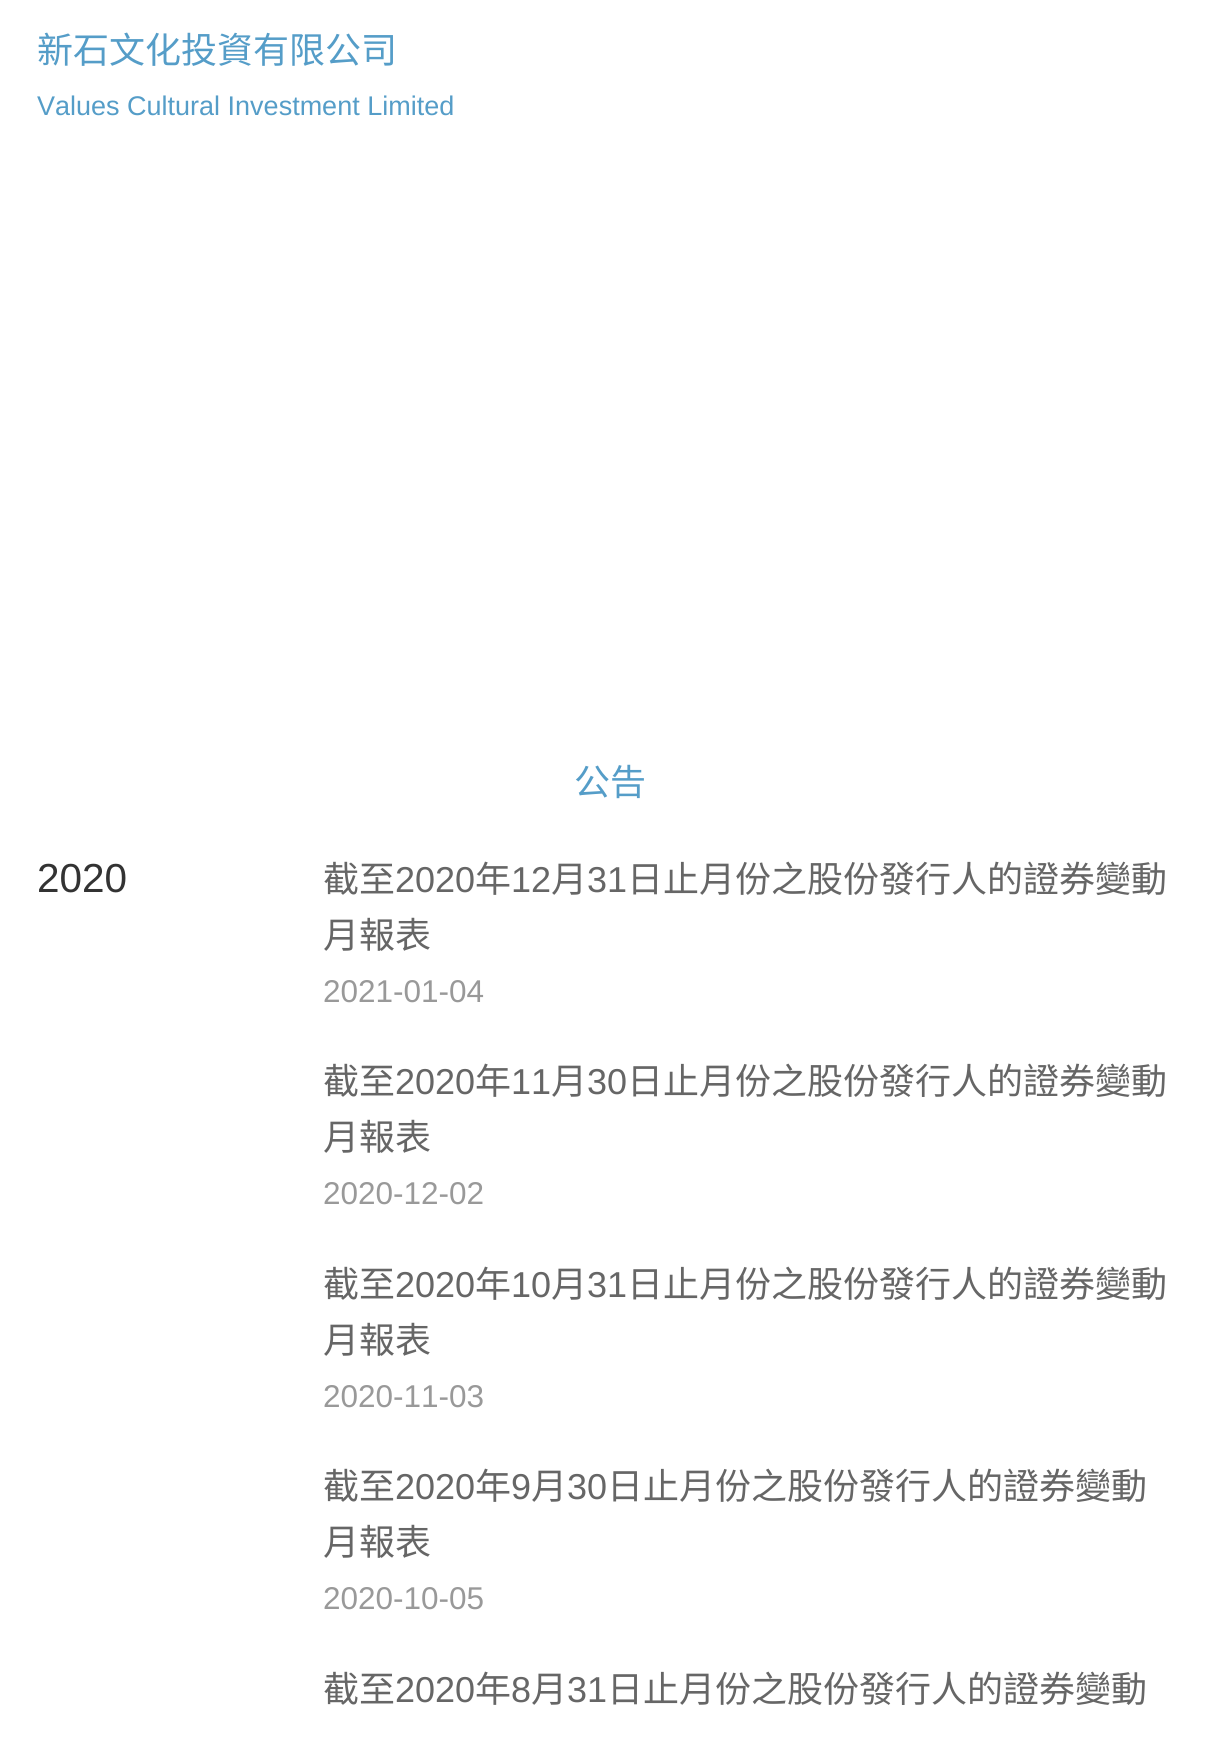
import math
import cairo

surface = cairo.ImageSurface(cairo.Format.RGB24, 1219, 1740)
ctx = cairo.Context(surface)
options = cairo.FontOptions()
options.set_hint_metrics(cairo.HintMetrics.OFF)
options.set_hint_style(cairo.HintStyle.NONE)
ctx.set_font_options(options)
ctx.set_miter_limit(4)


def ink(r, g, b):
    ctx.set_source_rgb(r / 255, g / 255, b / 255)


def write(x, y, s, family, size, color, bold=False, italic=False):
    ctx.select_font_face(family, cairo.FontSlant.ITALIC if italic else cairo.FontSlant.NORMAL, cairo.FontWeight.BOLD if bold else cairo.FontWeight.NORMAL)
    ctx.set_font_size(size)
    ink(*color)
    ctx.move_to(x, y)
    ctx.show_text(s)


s1 = dict(family="Noto Sans CJK SC", size=36, color=(85, 157, 200))
s2 = dict(family="Liberation Sans", size=27, color=(85, 157, 200))
s3 = dict(family="Liberation Sans", size=40.5, color=(51, 51, 51))
s4 = dict(family="Noto Sans CJK SC", size=36, color=(102, 102, 102))
s5 = dict(family="Liberation Sans", size=36, color=(102, 102, 102))
s6 = dict(family="Liberation Sans", size=31.5, color=(153, 153, 153))

ink(255, 255, 255)
ctx.paint()
write(37, 63, "新石文化投資有限公司", **s1)
write(37, 115, "Values Cultural Investment Limited", **s2)
write(574, 795, "公告", **s1)
write(37, 892, "2020", **s3)
write(323, 892, "截至", **s4)
write(395, 892, "2020", **s5)
write(475, 892, "年", **s4)
write(511, 892, "12", **s5)
write(551, 892, "月", **s4)
write(587, 892, "31", **s5)
write(627, 892, "日止月份之股份發行人的證券變動", **s4)
write(323, 948, "月報表", **s4)
write(323, 1002, "2021-01-04", **s6)
write(323, 1094, "截至", **s4)
write(395, 1094, "2020", **s5)
write(475, 1094, "年", **s4)
write(511, 1094, "11", **s5)
write(551, 1094, "月", **s4)
write(587, 1094, "30", **s5)
write(627, 1094, "日止月份之股份發行人的證券變動", **s4)
write(323, 1150, "月報表", **s4)
write(323, 1204, "2020-12-02", **s6)
write(323, 1297, "截至", **s4)
write(395, 1297, "2020", **s5)
write(475, 1297, "年", **s4)
write(511, 1297, "10", **s5)
write(551, 1297, "月", **s4)
write(587, 1297, "31", **s5)
write(627, 1297, "日止月份之股份發行人的證券變動", **s4)
write(323, 1353, "月報表", **s4)
write(323, 1407, "2020-11-03", **s6)
write(323, 1499, "截至", **s4)
write(395, 1499, "2020", **s5)
write(475, 1499, "年", **s4)
write(511, 1499, "9", **s5)
write(531, 1499, "月", **s4)
write(567, 1499, "30", **s5)
write(607, 1499, "日止月份之股份發行人的證券變動", **s4)
write(323, 1555, "月報表", **s4)
write(323, 1609, "2020-10-05", **s6)
write(323, 1702, "截至", **s4)
write(395, 1702, "2020", **s5)
write(475, 1702, "年", **s4)
write(511, 1702, "8", **s5)
write(531, 1702, "月", **s4)
write(567, 1702, "31", **s5)
write(607, 1702, "日止月份之股份發行人的證券變動", **s4)
surface.write_to_png("screenshot.png")
